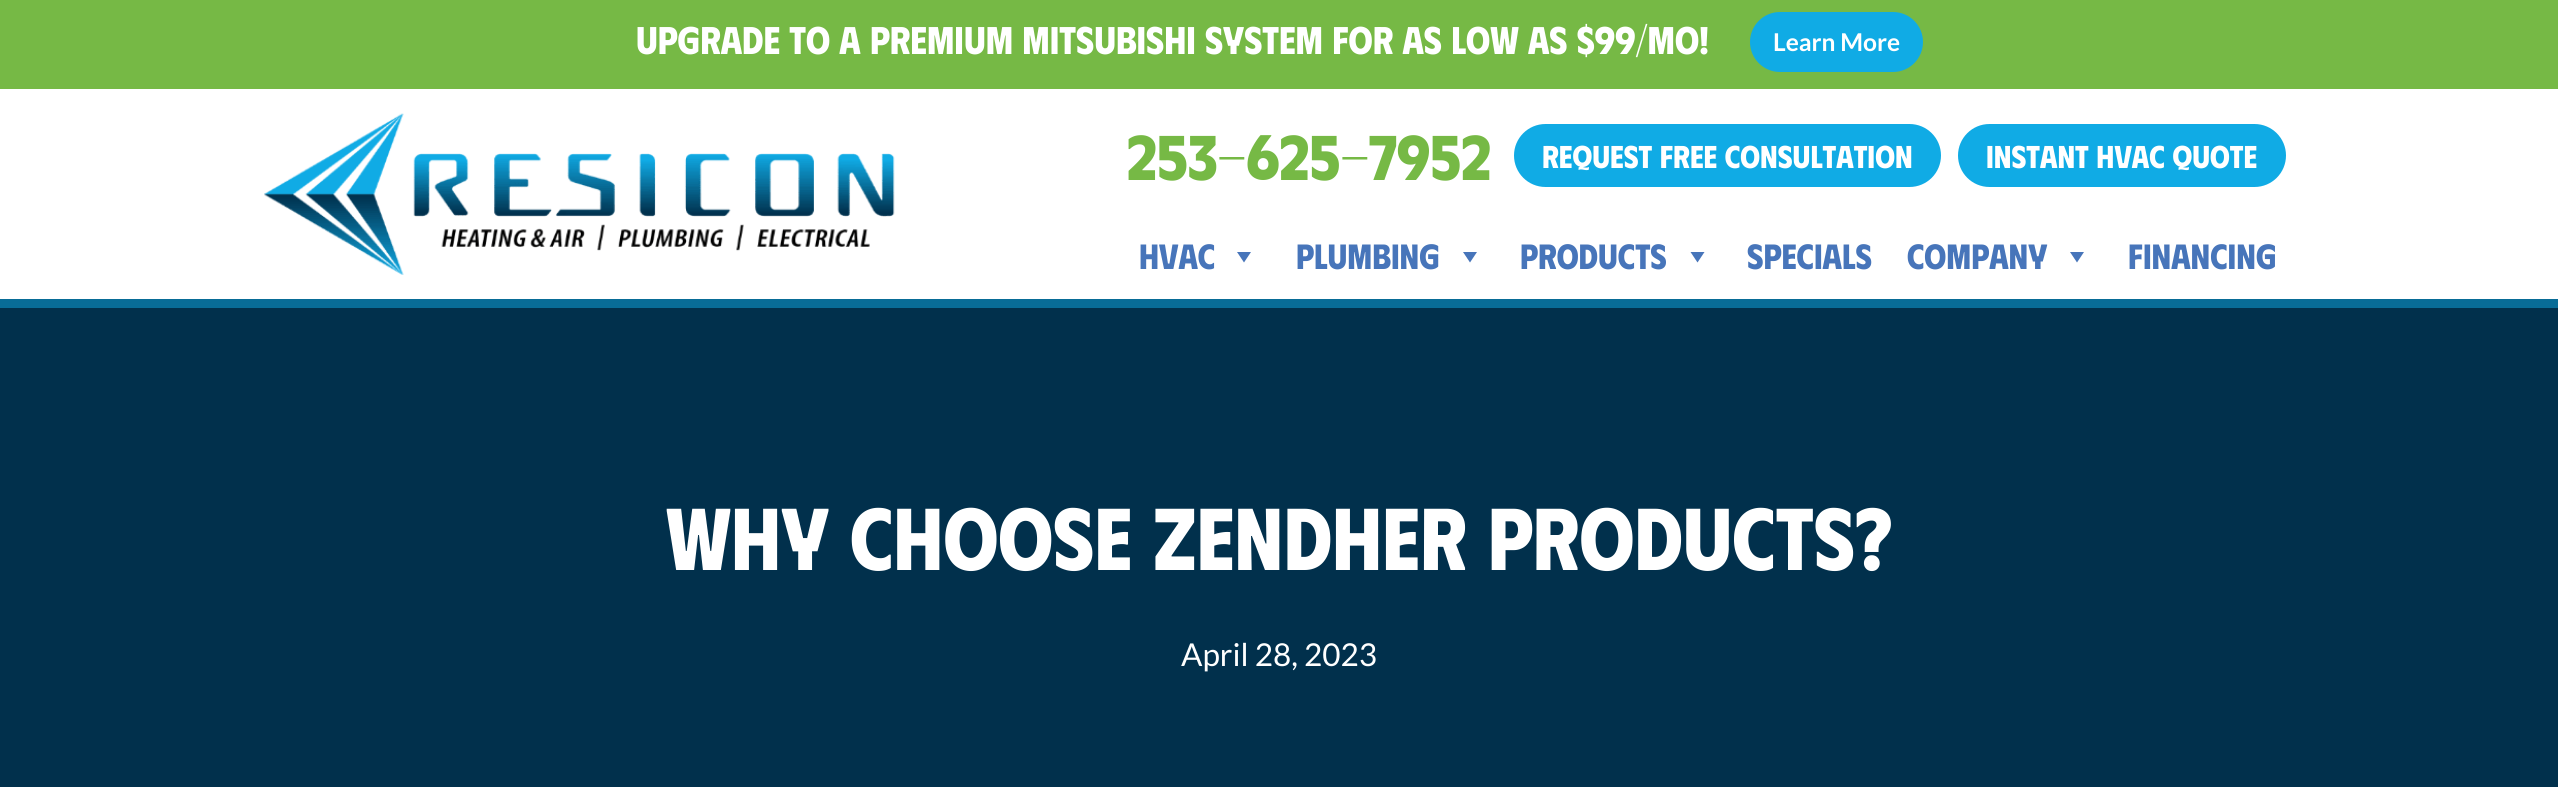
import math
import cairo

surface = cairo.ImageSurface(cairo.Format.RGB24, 2558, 787)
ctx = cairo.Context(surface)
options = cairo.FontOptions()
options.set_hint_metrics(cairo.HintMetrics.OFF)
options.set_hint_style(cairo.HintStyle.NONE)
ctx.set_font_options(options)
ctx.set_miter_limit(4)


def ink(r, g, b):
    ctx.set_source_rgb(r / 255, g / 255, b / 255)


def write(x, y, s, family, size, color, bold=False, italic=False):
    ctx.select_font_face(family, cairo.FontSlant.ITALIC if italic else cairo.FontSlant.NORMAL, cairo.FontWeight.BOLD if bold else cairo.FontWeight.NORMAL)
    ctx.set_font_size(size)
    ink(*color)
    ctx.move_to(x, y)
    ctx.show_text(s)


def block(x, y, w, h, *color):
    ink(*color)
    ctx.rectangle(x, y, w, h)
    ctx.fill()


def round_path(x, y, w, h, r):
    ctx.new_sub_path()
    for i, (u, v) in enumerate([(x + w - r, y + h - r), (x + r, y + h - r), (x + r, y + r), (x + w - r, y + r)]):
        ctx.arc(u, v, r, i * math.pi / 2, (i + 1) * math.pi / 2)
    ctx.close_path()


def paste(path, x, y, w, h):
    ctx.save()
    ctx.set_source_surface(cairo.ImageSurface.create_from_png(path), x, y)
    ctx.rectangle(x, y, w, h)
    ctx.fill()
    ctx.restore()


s1 = dict(family="Phudu", size=38.5, color=(255, 255, 255), bold=True)
s2 = dict(family="Lato", size=24.5, color=(255, 255, 255), bold=True)
s3 = dict(family="Phudu", size=63, color=(118, 185, 69), bold=True)
s4 = dict(family="Phudu", size=31.5, color=(255, 255, 255), bold=True)
s5 = dict(family="Phudu", size=35, color=(71, 117, 186), bold=True)
s6 = dict(family="Phudu", size=87.5, color=(255, 255, 255), bold=True)
s7 = dict(family="Lato", size=31.5, color=(255, 255, 255))

ink(255, 255, 255)
ctx.paint()
block(0, 0, 2558, 89, 118, 185, 69)
write(636, 54, "Upgrade to a premium Mitsubishi system for as low as $99/mo!", **s1)
ink(16, 171, 229)
round_path(1750, 12, 173, 60, 30)
ctx.fill()
write(1773, 51, "Learn More", **s2)
block(0, 299, 2558, 9, 8, 108, 151)
paste("pic1.png", 264, 113, 631, 162)
write(1127, 180, "253-625-7952", **s3)
ink(16, 171, 229)
round_path(1514, 124, 427, 63, 31.5)
ctx.fill()
write(1542, 168, "REQUEST FREE CONSULTATION", **s4)
ink(16, 171, 229)
round_path(1958, 124, 328, 63, 31.5)
ctx.fill()
write(1986, 168, "INSTANT HVAC QUOTE", **s4)
write(1139, 269, "HVAC", **s5)
ctx.new_path()
ctx.move_to(1251, 252)
ctx.line_to(1244, 262.5)
ctx.line_to(1237, 252)
ctx.close_path()
ctx.fill()
write(1296, 269, "PLUMBING", **s5)
ctx.new_path()
ctx.move_to(1477, 252)
ctx.line_to(1470, 262.5)
ctx.line_to(1463, 252)
ctx.close_path()
ctx.fill()
write(1520, 269, "PRODUCTS", **s5)
ctx.new_path()
ctx.move_to(1704.5, 252)
ctx.line_to(1697.5, 262.5)
ctx.line_to(1690.5, 252)
ctx.close_path()
ctx.fill()
write(1747, 269, "SPECIALS", **s5)
write(1907, 269, "COMPANY", **s5)
ctx.new_path()
ctx.move_to(2084, 252)
ctx.line_to(2077, 262.5)
ctx.line_to(2070, 252)
ctx.close_path()
ctx.fill()
write(2128, 269, "FINANCING", **s5)
block(0, 308, 2558, 479, 1, 48, 76)
write(666, 570, "Why Choose Zendher Products?", **s6)
write(1181, 666, "April 28, 2023", **s7)
surface.write_to_png("screenshot.png")
